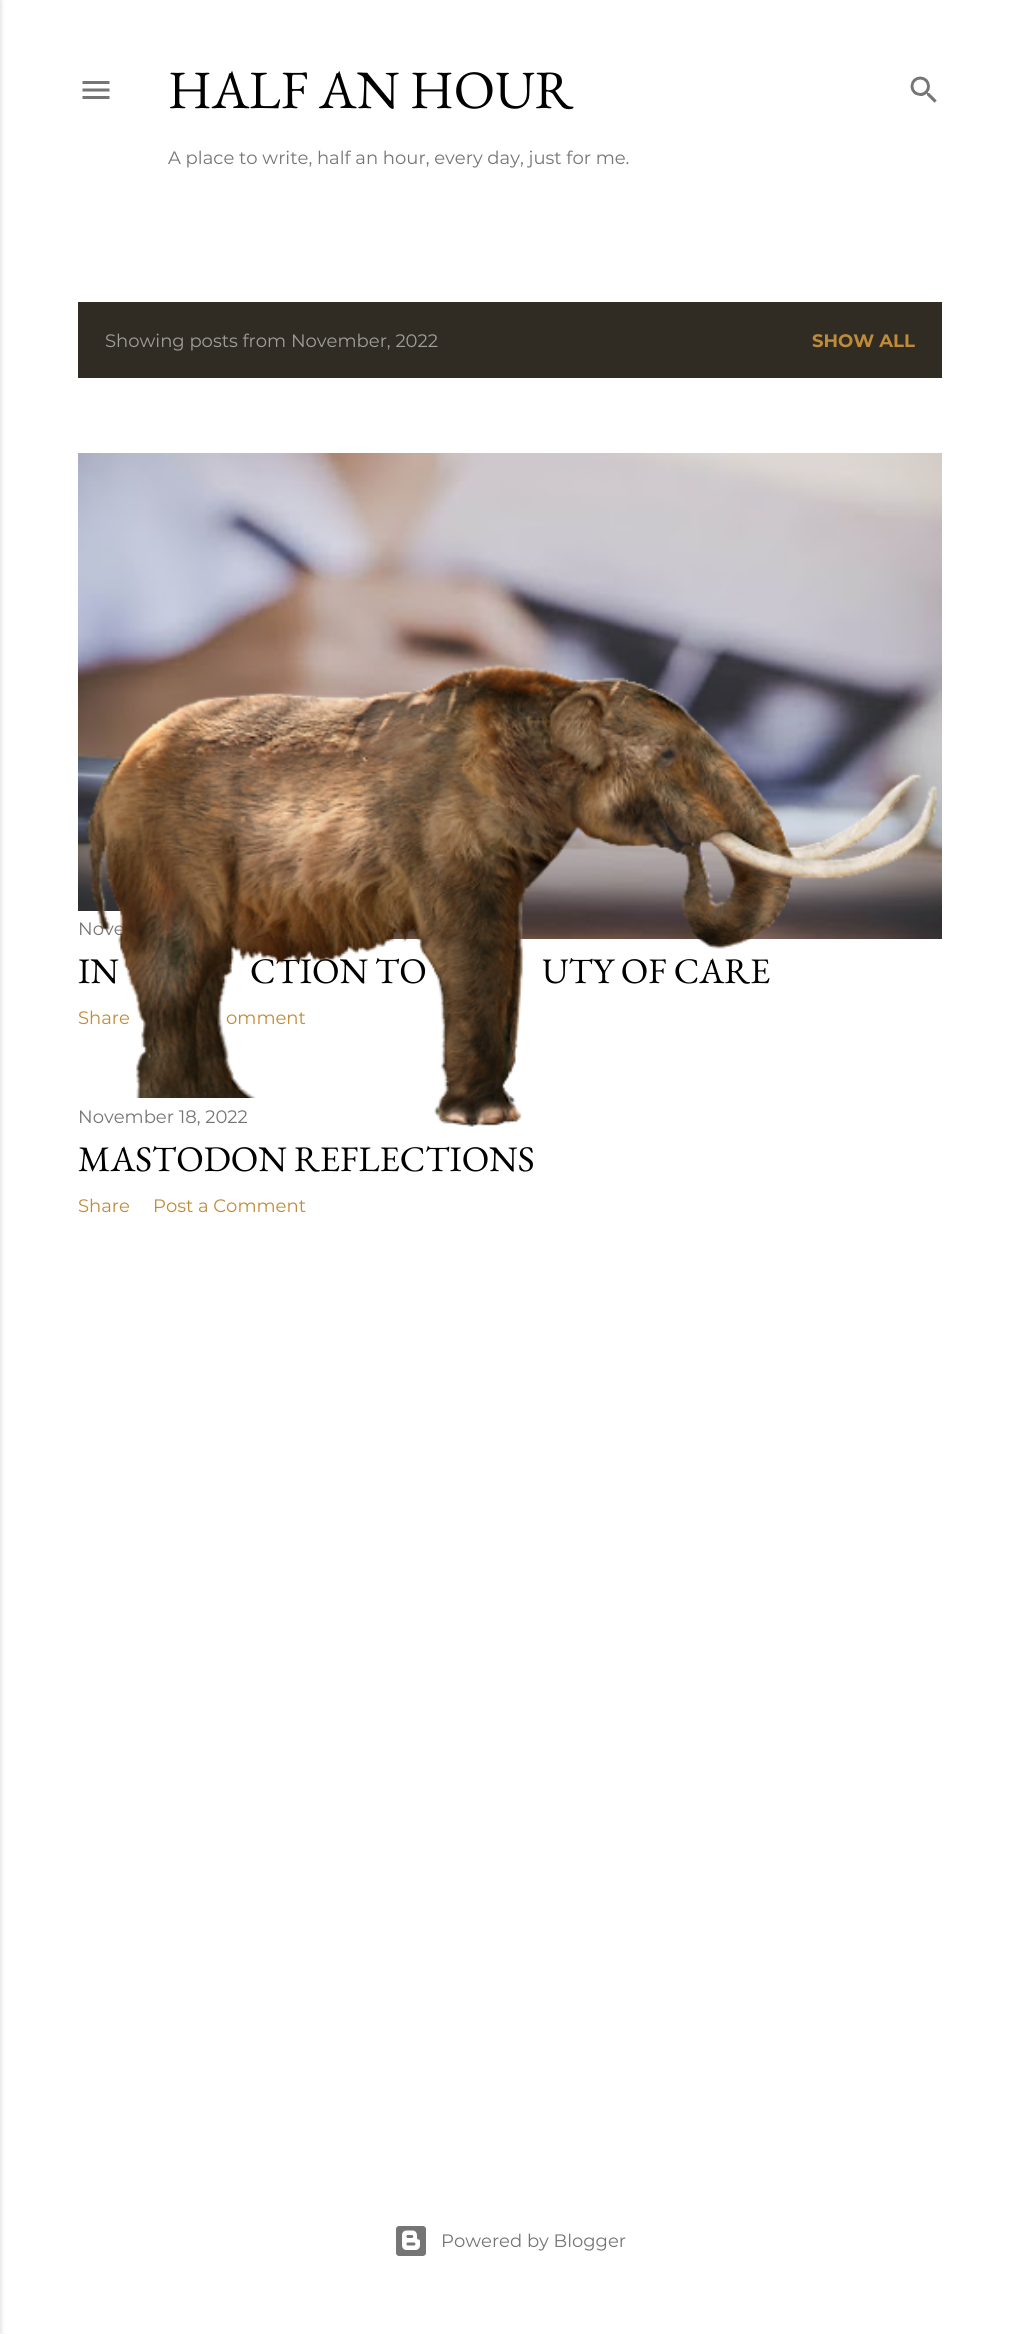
import math
import cairo

surface = cairo.ImageSurface(cairo.Format.RGB24, 1019, 2334)
ctx = cairo.Context(surface)
options = cairo.FontOptions()
options.set_hint_metrics(cairo.HintMetrics.OFF)
options.set_hint_style(cairo.HintStyle.NONE)
ctx.set_font_options(options)
ctx.set_miter_limit(4)


def ink(r, g, b):
    ctx.set_source_rgb(r / 255, g / 255, b / 255)


def write(x, y, s, family, size, color, bold=False, italic=False):
    ctx.select_font_face(family, cairo.FontSlant.ITALIC if italic else cairo.FontSlant.NORMAL, cairo.FontWeight.BOLD if bold else cairo.FontWeight.NORMAL)
    ctx.set_font_size(size)
    ink(*color)
    ctx.move_to(x, y)
    ctx.show_text(s)


def block(x, y, w, h, *color):
    ink(*color)
    ctx.rectangle(x, y, w, h)
    ctx.fill()


def round_path(x, y, w, h, r):
    ctx.new_sub_path()
    for i, (u, v) in enumerate([(x + w - r, y + h - r), (x + r, y + h - r), (x + r, y + r), (x + w - r, y + r)]):
        ctx.arc(u, v, r, i * math.pi / 2, (i + 1) * math.pi / 2)
    ctx.close_path()


def blur_box(x, y, w, h, r, blur, alpha):
    ctx.push_group_with_content(cairo.Content.ALPHA)
    ctx.set_operator(cairo.Operator.SOURCE)
    for i in range(15, -16, -2):
        e = blur * i / 6
        if min(w, h) + 2 * e > 0:
            ctx.set_source_rgba(0, 0, 0, alpha * math.erfc((i - 1) / 8.5) / 2)
            round_path(x - e, y - e, w + 2 * e, h + 2 * e, max(0, min(r + e + blur * .6, min(w, h) / 2 + e)))
            ctx.fill()
    ctx.mask(ctx.pop_group())


def paste(path, x, y, w, h):
    ctx.save()
    ctx.set_source_surface(cairo.ImageSurface.create_from_png(path), x, y)
    ctx.rectangle(x, y, w, h)
    ctx.fill()
    ctx.restore()


s1 = dict(family="EB Garamond", size=54, color=(0, 0, 0))
s2 = dict(family="Montserrat", size=18, color=(117, 117, 117))
s3 = dict(family="Montserrat", size=18, color=(160, 158, 154))
s4 = dict(family="Montserrat", size=18, color=(191, 139, 56), bold=True)
s5 = dict(family="EB Garamond", size=36, color=(0, 0, 0))
s6 = dict(family="Montserrat", size=18, color=(191, 139, 56))

ink(255, 255, 255)
ctx.paint()
ink(0, 0, 0)
blur_box(-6, 0, 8, 2334, 0, 2, 0.1)
paste("pic1.png", 82, 81, 28, 18)
write(168, 108, "HALF AN HOUR", **s1)
write(168, 164, "A place to write, half an hour, every day, just for me.", **s2)
paste("pic2.png", 910, 76, 27, 27)
block(78, 302, 864, 76, 48, 44, 36)
write(105, 347, "Showing posts from November, 2022", **s3)
write(812, 347, "SHOW ALL", **s4)
paste("pic3.png", 78, 453, 864, 486)
block(78, 911, 163, 28, 255, 255, 255)
write(78, 935, "Nove", **s2)
write(78, 983, "IN", **s5)
write(250, 983, "CTION TO", **s5)
write(542, 983, "UTY OF CARE", **s5)
write(78, 1024, "Share", **s6)
write(226, 1024, "omment", **s6)
paste("pic4.png", 86, 664, 851, 463)
block(134, 1098, 132, 28, 255, 255, 255)
write(78, 1123, "November 18, 2022", **s2)
write(78, 1171, "MASTODON REFLECTIONS", **s5)
write(78, 1212, "Share", **s6)
write(153, 1212, "Post a Comment", **s6)
paste("pic5.png", 396, 2226, 30, 30)
write(441, 2247, "Powered by Blogger", **s2)
surface.write_to_png("screenshot.png")
